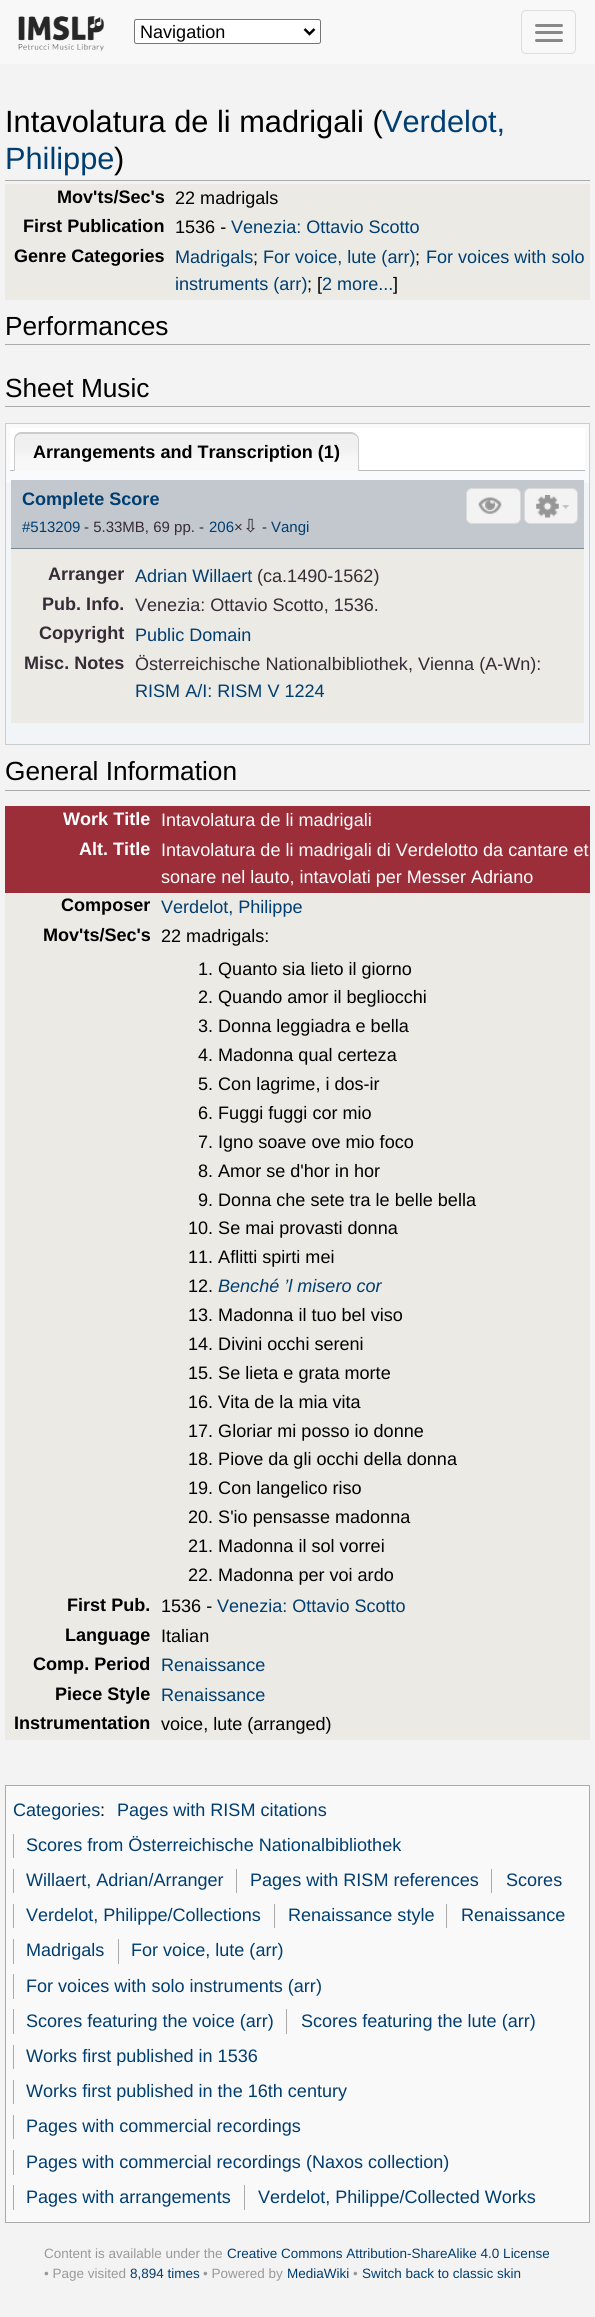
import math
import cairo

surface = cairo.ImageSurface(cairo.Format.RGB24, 595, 2317)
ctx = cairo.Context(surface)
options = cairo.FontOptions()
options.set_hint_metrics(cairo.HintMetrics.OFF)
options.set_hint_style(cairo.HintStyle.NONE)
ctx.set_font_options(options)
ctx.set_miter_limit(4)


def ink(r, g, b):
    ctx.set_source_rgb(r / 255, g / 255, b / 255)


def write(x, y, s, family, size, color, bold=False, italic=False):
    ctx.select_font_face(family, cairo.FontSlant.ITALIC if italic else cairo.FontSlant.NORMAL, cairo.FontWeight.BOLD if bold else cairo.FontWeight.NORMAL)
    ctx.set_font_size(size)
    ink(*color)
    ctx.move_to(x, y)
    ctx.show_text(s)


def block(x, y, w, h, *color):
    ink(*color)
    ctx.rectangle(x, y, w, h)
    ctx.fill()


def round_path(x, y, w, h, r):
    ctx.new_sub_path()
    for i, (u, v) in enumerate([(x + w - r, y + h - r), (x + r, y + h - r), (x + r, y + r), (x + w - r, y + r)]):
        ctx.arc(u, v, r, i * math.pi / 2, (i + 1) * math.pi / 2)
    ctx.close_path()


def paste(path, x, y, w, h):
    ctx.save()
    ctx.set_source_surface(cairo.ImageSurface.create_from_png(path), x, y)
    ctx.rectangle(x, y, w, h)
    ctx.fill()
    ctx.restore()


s1 = dict(family="Liberation Sans", size=18.05, color=(0, 0, 0))
s2 = dict(family="Liberation Sans", size=30.75, color=(0, 0, 0))
s3 = dict(family="Liberation Sans", size=30.75, color=(0, 61, 112))
s4 = dict(family="Liberation Sans", size=18.05, color=(0, 0, 0), bold=True)
s5 = dict(family="Liberation Sans", size=18.05, color=(0, 61, 112))
s6 = dict(family="Liberation Sans", size=26.25, color=(0, 0, 0))
s7 = dict(family="Liberation Sans", size=18.05, color=(0, 61, 112), bold=True)
s8 = dict(family="Liberation Sans", size=15, color=(0, 61, 112))
s9 = dict(family="Liberation Sans", size=15, color=(54, 43, 54))
s10 = dict(family="DejaVu Sans", size=18.05, color=(54, 43, 54))
s11 = dict(family="Liberation Sans", size=18.05, color=(54, 43, 54), bold=True)
s12 = dict(family="Liberation Sans", size=18.05, color=(54, 43, 54))
s13 = dict(family="Liberation Sans", size=18.05, color=(255, 255, 255), bold=True)
s14 = dict(family="Liberation Sans", size=18.05, color=(255, 255, 255))
s15 = dict(family="Liberation Sans", size=18.05, color=(0, 61, 112), italic=True)
s16 = dict(family="Liberation Sans", size=13.5, color=(153, 153, 153))
s17 = dict(family="Liberation Sans", size=13.5, color=(0, 61, 112))

ink(243, 243, 243)
ctx.paint()
block(0, 0, 595, 64, 248, 248, 248)
paste("pic1.png", 18, 16, 86, 36)
ink(255, 255, 255)
round_path(134.5, 19.5, 186, 24, 2)
ctx.fill_preserve()
ink(118, 118, 118)
ctx.set_line_width(1)
ctx.stroke()
ctx.new_path()
ctx.move_to(304.5, 29)
ctx.line_to(309.5, 34)
ctx.line_to(314.5, 29)
ink(0, 0, 0)
ctx.set_line_width(2.5)
ctx.stroke()
write(140, 38, "Navigation", **s1)
round_path(521.5, 10.5, 54, 43, 4.5)
ink(221, 221, 221)
ctx.set_line_width(1)
ctx.stroke()
ink(136, 136, 136)
round_path(535, 24, 28, 3, 1.5)
ctx.fill()
round_path(535, 31, 28, 3, 1.5)
ctx.fill()
round_path(535, 39, 28, 3, 1.5)
ctx.fill()
block(5, 180, 585, 1, 170, 170, 170)
write(5, 132, "Intavolatura de li madrigali (", **s2)
write(382, 132, "Verdelot,", **s3)
write(5, 169, "Philippe", **s3)
write(114, 169, ")", **s2)
block(5, 184, 585, 116, 235, 234, 228)
write(57, 203, "Mov'ts/Sec's", **s4)
write(175, 204, "22 madrigals", **s1)
write(23, 232, "First Publication", **s4)
write(175, 233, "1536 -", **s1)
write(231, 233, "Venezia: Ottavio Scotto", **s5)
write(14, 262, "Genre Categories", **s4)
write(175, 263, "Madrigals", **s5)
write(253, 263, ";", **s1)
write(263, 263, "For voice, lute (arr)", **s5)
write(415, 263, ";", **s1)
write(426, 263, "For voices with solo", **s5)
write(175, 290, "instruments (arr)", **s5)
write(307, 290, "; [", **s1)
write(322, 290, "2 more...", **s5)
write(393, 290, "]", **s1)
block(5, 344, 585, 1, 170, 170, 170)
write(5, 335, "Performances", **s6)
block(5, 406, 585, 1, 170, 170, 170)
write(5, 397, "Sheet Music", **s6)
block(6, 483, 583, 261, 242, 245, 247)
block(6, 424, 583, 59, 249, 250, 251)
ctx.rectangle(5.5, 423.5, 584, 321)
ink(204, 204, 204)
ctx.stroke()
block(10, 428, 575, 42, 255, 255, 255)
block(10, 470, 575, 1, 187, 187, 187)
paste("pic2.png", 13, 432, 346, 39)
ink(204, 204, 204)
ctx.set_fill_rule(cairo.FillRule.EVEN_ODD)
ctx.new_path()
ctx.move_to(21, 432)
ctx.line_to(351, 432)
ctx.curve_to(355, 432, 359, 436, 359, 440)
ctx.line_to(359, 471)
ctx.line_to(14, 471)
ctx.line_to(14, 440)
ctx.curve_to(14, 436, 17, 432, 21, 432)
ctx.close_path()
ctx.move_to(21, 434)
ctx.line_to(351, 434)
ctx.curve_to(355, 434, 358, 437, 358, 440)
ctx.line_to(358, 471)
ctx.line_to(15, 471)
ctx.line_to(15, 440)
ctx.curve_to(15, 437, 18, 434, 21, 434)
ctx.close_path()
ctx.fill()
write(33, 458, "Arrangements and Transcription (1)", **s4)
block(11, 480, 573, 68, 194, 200, 205)
block(11, 548, 573, 1, 120, 135, 145)
write(22, 505, "Complete Score", **s7)
write(22, 532, "#513209", **s8)
write(84, 532, "- 5.33MB, 69 pp. -", **s9)
write(209, 532, "206", **s8)
write(234, 532, "×", **s9)
write(243, 532, "⇩", **s10)
write(262, 532, "-", **s9)
write(271, 532, "Vangi", **s8)
ink(243, 243, 243)
round_path(466.5, 488.5, 54, 35, 5.5)
ctx.fill_preserve()
ink(217, 217, 217)
ctx.stroke()
paste("pic3.png", 478, 497, 24, 17)
ink(243, 243, 243)
round_path(524.5, 488.5, 53, 35, 5.5)
ctx.fill_preserve()
ink(217, 217, 217)
ctx.stroke()
paste("pic4.png", 536, 495, 23, 23)
paste("pic5.png", 562, 505, 7, 4)
block(11, 549, 573, 174, 235, 234, 228)
write(48, 580, "Arranger", **s11)
write(135, 582, "Adrian Willaert", **s5)
write(257, 582, "(ca.1490-1562)", **s12)
write(42, 610, "Pub. Info.", **s11)
write(135, 611, "Venezia: Ottavio Scotto, 1536.", **s12)
write(39, 639, "Copyright", **s11)
write(135, 641, "Public Domain", **s5)
write(24, 669, "Misc. Notes", **s11)
write(135, 670, "Österreichische Nationalbibliothek, Vienna (A-Wn):", **s12)
write(135, 697, "RISM A/I: RISM V 1224", **s5)
block(5, 790, 585, 1, 170, 170, 170)
write(5, 780, "General Information", **s6)
block(5, 893, 585, 847, 235, 234, 228)
block(5, 806, 585, 30, 156, 46, 58)
write(63, 825, "Work Title", **s13)
write(161, 826, "Intavolatura de li madrigali", **s14)
block(5, 836, 585, 57, 156, 46, 58)
write(79, 855, "Alt. Title", **s13)
write(161, 856, "Intavolatura de li madrigali di Verdelotto da cantare et", **s14)
write(161, 883, "sonare nel lauto, intavolati per Messer Adriano", **s14)
write(61, 911, "Composer", **s4)
write(161, 913, "Verdelot, Philippe", **s5)
write(43, 941, "Mov'ts/Sec's", **s4)
write(161, 942, "22 madrigals:", **s1)
write(198, 975, "1. Quanto sia lieto il giorno", **s1)
write(198, 1003, "2. Quando amor il begliocchi", **s1)
write(198, 1032, "3. Donna leggiadra e bella", **s1)
write(198, 1061, "4. Madonna qual certeza", **s1)
write(198, 1090, "5. Con lagrime, i dos-ir", **s1)
write(198, 1119, "6. Fuggi fuggi cor mio", **s1)
write(198, 1148, "7. Igno soave ove mio foco", **s1)
write(198, 1177, "8. Amor se d'hor in hor", **s1)
write(198, 1206, "9. Donna che sete tra le belle bella", **s1)
write(188, 1234, "10. Se mai provasti donna", **s1)
write(188, 1263, "11. Aflitti spirti mei", **s1)
write(188, 1292, "12.", **s1)
write(218, 1292, "Benché ’l misero cor", **s15)
write(188, 1321, "13. Madonna il tuo bel viso", **s1)
write(188, 1350, "14. Divini occhi sereni", **s1)
write(188, 1379, "15. Se lieta e grata morte", **s1)
write(188, 1408, "16. Vita de la mia vita", **s1)
write(188, 1437, "17. Gloriar mi posso io donne", **s1)
write(188, 1465, "18. Piove da gli occhi della donna", **s1)
write(188, 1494, "19. Con langelico riso", **s1)
write(188, 1523, "20. S'io pensasse madonna", **s1)
write(188, 1552, "21. Madonna il sol vorrei", **s1)
write(188, 1581, "22. Madonna per voi ardo", **s1)
write(67, 1611, "First Pub.", **s4)
write(161, 1612, "1536 -", **s1)
write(217, 1612, "Venezia: Ottavio Scotto", **s5)
write(65, 1641, "Language", **s4)
write(161, 1642, "Italian", **s1)
write(33, 1670, "Comp. Period", **s4)
write(161, 1671, "Renaissance", **s5)
write(55, 1700, "Piece Style", **s4)
write(161, 1701, "Renaissance", **s5)
write(14, 1729, "Instrumentation", **s4)
write(161, 1730, "voice, lute (arranged)", **s1)
ink(249, 249, 249)
ctx.rectangle(5.5, 1785.5, 584, 437)
ctx.fill_preserve()
ink(170, 170, 170)
ctx.stroke()
write(13, 1816, "Categories", **s5)
write(117, 1816, "Pages with RISM citations", **s5)
block(13, 1834, 1, 24, 170, 170, 170)
write(26, 1851, "Scores from Österreichische Nationalbibliothek", **s5)
block(13, 1869, 1, 24, 170, 170, 170)
write(26, 1886, "Willaert, Adrian/Arranger", **s5)
block(236, 1869, 1, 24, 170, 170, 170)
write(250, 1886, "Pages with RISM references", **s5)
block(491, 1869, 1, 24, 170, 170, 170)
write(506, 1886, "Scores", **s5)
block(13, 1904, 1, 24, 170, 170, 170)
write(26, 1921, "Verdelot, Philippe/Collections", **s5)
block(274, 1904, 1, 24, 170, 170, 170)
write(288, 1921, "Renaissance style", **s5)
block(446, 1904, 1, 24, 170, 170, 170)
write(461, 1921, "Renaissance", **s5)
block(13, 1939, 1, 25, 170, 170, 170)
write(26, 1956, "Madrigals", **s5)
block(118, 1939, 1, 25, 170, 170, 170)
write(131, 1956, "For voice, lute (arr)", **s5)
block(13, 1974, 1, 25, 170, 170, 170)
write(26, 1992, "For voices with solo instruments (arr)", **s5)
block(13, 2009, 1, 25, 170, 170, 170)
write(26, 2027, "Scores featuring the voice (arr)", **s5)
block(286, 2009, 1, 25, 170, 170, 170)
write(301, 2027, "Scores featuring the lute (arr)", **s5)
block(13, 2045, 1, 24, 170, 170, 170)
write(26, 2062, "Works first published in 1536", **s5)
block(13, 2080, 1, 24, 170, 170, 170)
write(26, 2097, "Works first published in the 16th century", **s5)
block(13, 2115, 1, 24, 170, 170, 170)
write(26, 2132, "Pages with commercial recordings", **s5)
block(13, 2150, 1, 25, 170, 170, 170)
write(26, 2168, "Pages with commercial recordings (Naxos collection)", **s5)
block(13, 2185, 1, 25, 170, 170, 170)
write(26, 2203, "Pages with arrangements", **s5)
block(244, 2185, 1, 25, 170, 170, 170)
write(258, 2203, "Verdelot, Philippe/Collected Works", **s5)
write(100, 1816, ":", **s1)
write(44, 2258, "Content is available under the", **s16)
write(227, 2258, "Creative Commons Attribution-ShareAlike 4.0 License", **s17)
write(44, 2278, "• Page visited", **s16)
write(130, 2278, "8,894 times", **s17)
write(203, 2278, "• Powered by", **s16)
write(287, 2278, "MediaWiki", **s17)
write(353, 2278, "•", **s16)
write(362, 2278, "Switch back to classic skin", **s17)
surface.write_to_png("screenshot.png")
